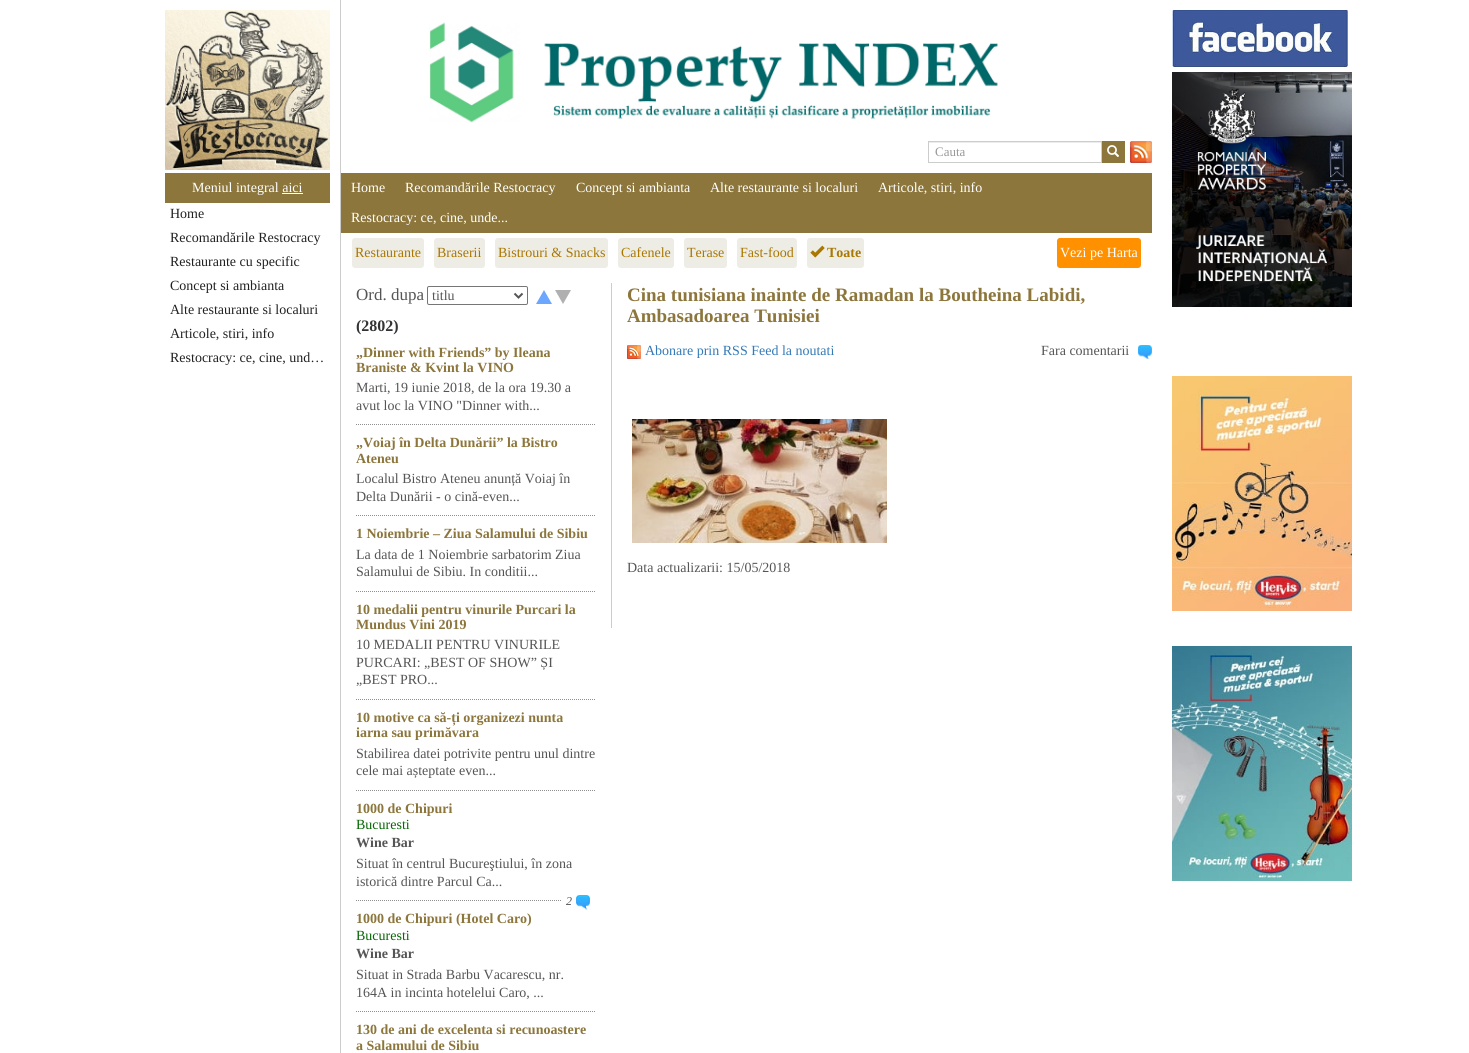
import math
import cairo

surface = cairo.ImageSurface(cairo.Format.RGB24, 1469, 1053)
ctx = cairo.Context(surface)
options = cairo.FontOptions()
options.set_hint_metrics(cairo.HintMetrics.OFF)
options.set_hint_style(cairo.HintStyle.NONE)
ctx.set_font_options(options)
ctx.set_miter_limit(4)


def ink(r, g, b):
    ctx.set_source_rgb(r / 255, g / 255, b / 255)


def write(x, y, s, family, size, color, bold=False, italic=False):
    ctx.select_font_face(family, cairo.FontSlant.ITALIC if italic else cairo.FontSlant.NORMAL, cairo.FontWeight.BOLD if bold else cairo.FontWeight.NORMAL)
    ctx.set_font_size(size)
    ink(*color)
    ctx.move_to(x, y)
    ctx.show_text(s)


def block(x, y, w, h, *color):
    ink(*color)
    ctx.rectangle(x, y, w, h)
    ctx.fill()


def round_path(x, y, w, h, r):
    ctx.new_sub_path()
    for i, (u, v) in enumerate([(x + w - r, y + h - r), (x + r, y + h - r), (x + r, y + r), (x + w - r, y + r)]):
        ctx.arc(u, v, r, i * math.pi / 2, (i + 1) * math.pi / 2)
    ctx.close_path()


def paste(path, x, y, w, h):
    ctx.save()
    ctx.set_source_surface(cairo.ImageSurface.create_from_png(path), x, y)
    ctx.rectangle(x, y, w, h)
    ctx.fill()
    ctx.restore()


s1 = dict(family="Liberation Serif", size=14, color=(255, 255, 255))
s2 = dict(family="Liberation Serif", size=14, color=(33, 33, 33))
s3 = dict(family="Liberation Serif", size=13, color=(153, 153, 153))
s4 = dict(family="Liberation Serif", size=14, color=(170, 119, 0))
s5 = dict(family="Liberation Serif", size=14, color=(170, 119, 0), bold=True)
s6 = dict(family="Liberation Serif", size=17, color=(85, 85, 85))
s7 = dict(family="Liberation Serif", size=14, color=(85, 85, 85))
s8 = dict(family="Liberation Serif", size=16, color=(51, 51, 51), bold=True)
s9 = dict(family="Liberation Serif", size=14, color=(140, 118, 60), bold=True)
s10 = dict(family="Liberation Serif", size=14, color=(5, 102, 3))
s11 = dict(family="Liberation Serif", size=14, color=(85, 85, 85), bold=True)
s12 = dict(family="Liberation Serif", size=12, color=(85, 85, 85), italic=True)
s13 = dict(family="Liberation Serif", size=19, color=(140, 118, 60), bold=True)
s14 = dict(family="Liberation Serif", size=14, color=(51, 122, 183))

ink(255, 255, 255)
ctx.paint()
paste("pic1.png", 165, 10, 165, 160)
block(165, 173, 165, 30, 140, 118, 60)
write(192, 192, "Meniul integral aici", **s1)
block(282, 193, 21, 1, 255, 255, 255)
write(170, 218, "Home", **s2)
write(170, 242, "Recomandările Restocracy", **s2)
write(170, 266, "Restaurante cu specific", **s2)
write(170, 290, "Concept si ambianta", **s2)
write(170, 314, "Alte restaurante si localuri", **s2)
write(170, 338, "Articole, stiri, info", **s2)
write(170, 362, "Restocracy: ce, cine, und…", **s2)
block(340, 0, 1, 1053, 204, 204, 204)
paste("pic2.png", 429, 22, 569, 101)
block(929, 142, 172, 1, 236, 236, 236)
ctx.rectangle(928.5, 141.5, 173, 21)
ink(204, 204, 204)
ctx.set_line_width(1)
ctx.stroke()
write(935, 156, "Cauta", **s3)
block(1102, 141, 23, 22, 140, 118, 60)
paste("pic3.png", 1107, 145, 12, 12)
paste("pic4.png", 1130, 141, 22, 22)
block(341, 173, 811, 60, 140, 118, 60)
write(351, 192, "Home", **s1)
write(405, 192, "Recomandările Restocracy", **s1)
write(576, 192, "Concept si ambianta", **s1)
write(710, 192, "Alte restaurante si localuri", **s1)
write(878, 192, "Articole, stiri, info", **s1)
write(351, 222, "Restocracy: ce, cine, unde...", **s1)
ink(237, 237, 230)
round_path(352, 238, 72, 30, 3)
ctx.fill()
write(355, 257, "Restaurante", **s4)
ink(237, 237, 230)
round_path(434, 238, 51, 30, 3)
ctx.fill()
write(437, 257, "Braserii", **s4)
ink(237, 237, 230)
round_path(495, 238, 113, 30, 3)
ctx.fill()
write(498, 257, "Bistrouri & Snacks", **s4)
ink(237, 237, 230)
round_path(618, 238, 56, 30, 3)
ctx.fill()
write(621, 257, "Cafenele", **s4)
ink(237, 237, 230)
round_path(684, 238, 43, 30, 3)
ctx.fill()
write(687, 257, "Terase", **s4)
ink(237, 237, 230)
round_path(737, 238, 60, 30, 3)
ctx.fill()
write(740, 257, "Fast-food", **s4)
ink(237, 237, 230)
round_path(807, 238, 57, 30, 3)
ctx.fill()
paste("pic5.png", 810, 245, 15, 13)
write(827, 257, "Toate", **s5)
ink(255, 144, 0)
round_path(1057, 238, 84, 30, 3)
ctx.fill()
write(1060, 257, "Vezi pe Harta", **s1)
write(356, 300, "Ord. dupa", **s6)
round_path(427.5, 286.5, 100, 18, 1.5)
ink(118, 118, 118)
ctx.stroke()
ctx.new_path()
ctx.move_to(514.5, 293.5)
ctx.line_to(518.5, 297.5)
ctx.line_to(522.5, 293.5)
ink(85, 85, 85)
ctx.set_line_width(2)
ctx.stroke()
write(432, 300, "titlu", **s7)
ink(108, 167, 255)
ctx.new_path()
ctx.move_to(552, 304)
ctx.line_to(536, 304)
ctx.line_to(544, 290)
ctx.close_path()
ctx.fill()
ink(176, 176, 176)
ctx.new_path()
ctx.move_to(555, 290)
ctx.line_to(571, 290)
ctx.line_to(563, 304)
ctx.close_path()
ctx.fill()
write(356, 331, "(2802)", **s8)
write(356, 357, "„Dinner with Friends” by Ileana", **s9)
write(356, 372, "Braniste & Kvint la VINO", **s9)
write(356, 392, "Marti, 19 iunie 2018, de la ora 19.30 a", **s7)
write(356, 410, "avut loc la VINO \"Dinner with...", **s7)
ctx.new_path()
ctx.move_to(356, 424.5)
ctx.line_to(596, 424.5)
ink(143, 143, 143)
ctx.set_line_width(1)
ctx.set_dash([1, 1])
ctx.stroke()
write(356, 447, "„Voiaj în Delta Dunării” la Bistro", **s9)
write(356, 463, "Ateneu", **s9)
write(356, 483, "Localul Bistro Ateneu anunță Voiaj în", **s7)
write(356, 501, "Delta Dunării - o cină-even...", **s7)
ctx.new_path()
ctx.move_to(356, 515.5)
ctx.line_to(596, 515.5)
ink(143, 143, 143)
ctx.stroke()
write(356, 538, "1 Noiembrie – Ziua Salamului de Sibiu", **s9)
write(356, 559, "La data de 1 Noiembrie sarbatorim Ziua", **s7)
write(356, 576, "Salamului de Sibiu. In conditii...", **s7)
ctx.new_path()
ctx.move_to(356, 591.5)
ctx.line_to(596, 591.5)
ink(143, 143, 143)
ctx.stroke()
write(356, 614, "10 medalii pentru vinurile Purcari la", **s9)
write(356, 629, "Mundus Vini 2019", **s9)
write(356, 649, "10 MEDALII PENTRU VINURILE", **s7)
write(356, 667, "PURCARI: „BEST OF SHOW” ȘI", **s7)
write(356, 684, "„BEST PRO...", **s7)
ctx.new_path()
ctx.move_to(356, 699.5)
ctx.line_to(596, 699.5)
ink(143, 143, 143)
ctx.stroke()
write(356, 722, "10 motive ca să-ți organizezi nunta", **s9)
write(356, 737, "iarna sau primăvara", **s9)
write(356, 758, "Stabilirea datei potrivite pentru unul dintre", **s7)
write(356, 775, "cele mai așteptate even...", **s7)
ctx.new_path()
ctx.move_to(356, 790.5)
ctx.line_to(596, 790.5)
ink(143, 143, 143)
ctx.stroke()
write(356, 813, "1000 de Chipuri", **s9)
write(356, 829, "Bucuresti", **s10)
write(356, 847, "Wine Bar", **s11)
write(356, 868, "Situat în centrul Bucureştiului, în zona", **s7)
write(356, 886, "istorică dintre Parcul Ca...", **s7)
ctx.new_path()
ctx.move_to(356, 900.5)
ctx.line_to(596, 900.5)
ink(143, 143, 143)
ctx.stroke()
block(562, 900, 33, 1, 255, 255, 255)
write(566, 905, "2", **s12)
paste("pic6.png", 576, 895, 14, 15)
write(356, 923, "1000 de Chipuri (Hotel Caro)", **s9)
write(356, 940, "Bucuresti", **s10)
write(356, 958, "Wine Bar", **s11)
write(356, 979, "Situat in Strada Barbu Vacarescu, nr.", **s7)
write(356, 997, "164A in incinta hotelelui Caro, ...", **s7)
ctx.new_path()
ctx.move_to(356, 1011.5)
ctx.line_to(596, 1011.5)
ink(143, 143, 143)
ctx.stroke()
write(356, 1034, "130 de ani de excelenta si recunoastere", **s9)
write(356, 1050, "a Salamului de Sibiu", **s9)
block(611, 283, 1, 345, 204, 204, 204)
write(627, 301, "Cina tunisiana inainte de Ramadan la Boutheina Labidi,", **s13)
write(627, 322, "Ambasadoarea Tunisiei", **s13)
paste("pic7.png", 627, 345, 14, 14)
write(645, 355, "Abonare prin RSS Feed la noutati", **s14)
write(1041, 355, "Fara comentarii", **s7)
paste("pic8.png", 1138, 345, 14, 14)
paste("pic9.png", 632, 419, 255, 124)
write(627, 572, "Data actualizarii: 15/05/2018", **s7)
paste("pic10.png", 1172, 10, 176, 57)
paste("pic11.png", 1172, 72, 180, 235)
paste("pic12.png", 1172, 376, 180, 235)
paste("pic13.png", 1172, 646, 180, 235)
surface.write_to_png("screenshot.png")
